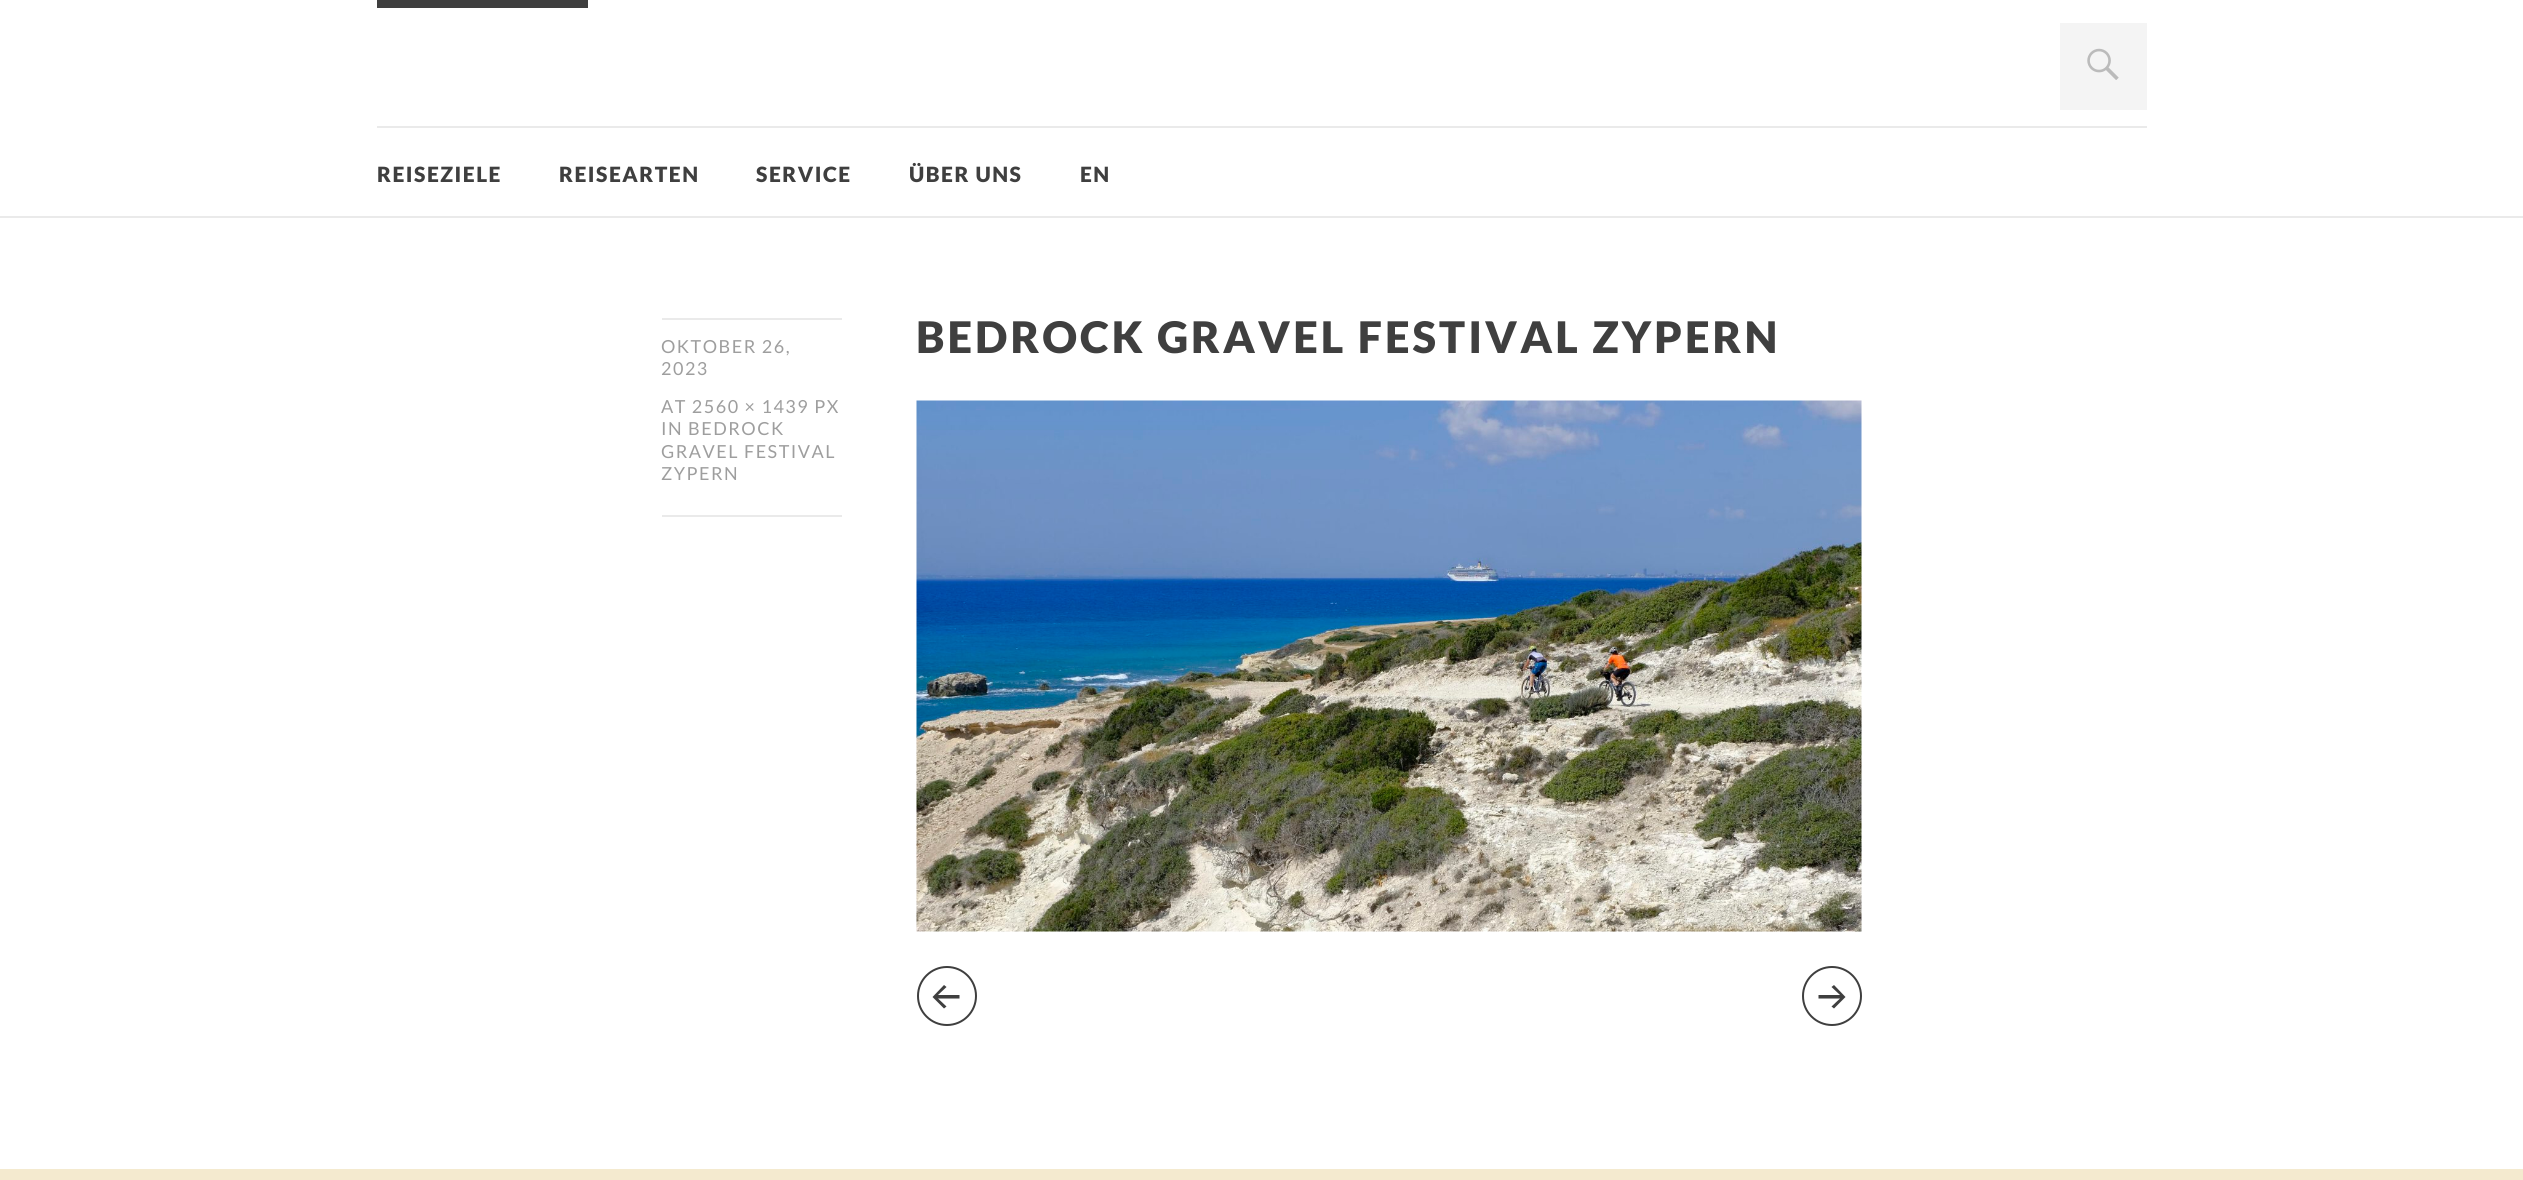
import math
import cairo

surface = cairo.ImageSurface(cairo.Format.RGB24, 2523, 1180)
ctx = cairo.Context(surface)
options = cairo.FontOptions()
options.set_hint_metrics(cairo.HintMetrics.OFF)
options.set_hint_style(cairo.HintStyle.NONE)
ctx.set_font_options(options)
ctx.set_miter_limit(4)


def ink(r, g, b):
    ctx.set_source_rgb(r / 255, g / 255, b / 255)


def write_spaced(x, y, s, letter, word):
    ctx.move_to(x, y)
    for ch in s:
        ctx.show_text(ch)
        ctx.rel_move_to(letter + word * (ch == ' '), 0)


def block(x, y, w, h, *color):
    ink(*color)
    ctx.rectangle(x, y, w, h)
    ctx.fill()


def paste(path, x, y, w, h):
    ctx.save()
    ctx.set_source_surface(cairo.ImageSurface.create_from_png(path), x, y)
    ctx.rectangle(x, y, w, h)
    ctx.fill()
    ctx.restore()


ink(255, 255, 255)
ctx.paint()
block(0, 216, 2523, 2, 234, 234, 234)
block(377, 0, 211, 8, 63, 63, 63)
block(2060, 23, 87, 87, 244, 244, 244)
paste("pic1.png", 2087, 48, 32, 32)
block(377, 126, 1770, 2, 234, 234, 234)
ctx.select_font_face("Lato Black")
ctx.set_font_size(21)
ink(63, 63, 63)
write_spaced(377, 182, "REISEZIELE", 1.5, 0)
write_spaced(559, 182, "REISEARTEN", 1.5, 0)
write_spaced(756, 182, "SERVICE", 1.5, 0)
write_spaced(909, 182, "ÜBER UNS", 1.5, 0)
write_spaced(1080, 182, "EN", 1.5, 0)
block(662, 318, 180, 2, 234, 234, 234)
ctx.select_font_face("Lato")
ctx.set_font_size(18)
ink(158, 158, 158)
write_spaced(661, 353, "OKTOBER 26,", 1.5, 0)
write_spaced(661, 375, "2023", 1.5, 0)
write_spaced(661, 413, "AT 2560 × 1439 PX", 1.5, 0)
write_spaced(661, 435, "IN BEDROCK", 1.5, 0)
write_spaced(661, 458, "GRAVEL FESTIVAL", 1.5, 0)
write_spaced(661, 480, "ZYPERN", 1.5, 0)
block(662, 515, 180, 2, 234, 234, 234)
ctx.select_font_face("Lato Black")
ctx.set_font_size(43.5)
ink(63, 63, 63)
write_spaced(916, 353, "BEDROCK GRAVEL FESTIVAL ZYPERN", 3, 0)
paste("pic2.png", 916, 400, 946, 532)
ctx.arc(947, 996, 29, 0, 2 * math.pi)
ctx.stroke()
ctx.new_path()
ctx.move_to(932.5, 997)
ctx.line_to(944, 1008.5)
ctx.line_to(946.5, 1006.5)
ctx.line_to(938, 998.5)
ctx.line_to(959.5, 998.5)
ctx.line_to(959.5, 995)
ctx.line_to(938, 995)
ctx.line_to(946.5, 987)
ctx.line_to(944, 985)
ctx.close_path()
ctx.fill()
ctx.arc(1832, 996, 29, 0, 2 * math.pi)
ctx.stroke()
ctx.new_path()
ctx.move_to(1818.5, 998.5)
ctx.line_to(1818.5, 995)
ctx.line_to(1840, 995)
ctx.line_to(1831.5, 987)
ctx.line_to(1834, 985)
ctx.line_to(1845.5, 997)
ctx.line_to(1834, 1008.5)
ctx.line_to(1831.5, 1006.5)
ctx.line_to(1840, 998.5)
ctx.close_path()
ctx.fill()
block(0, 1169, 2523, 11, 244, 234, 207)
surface.write_to_png("screenshot.png")
